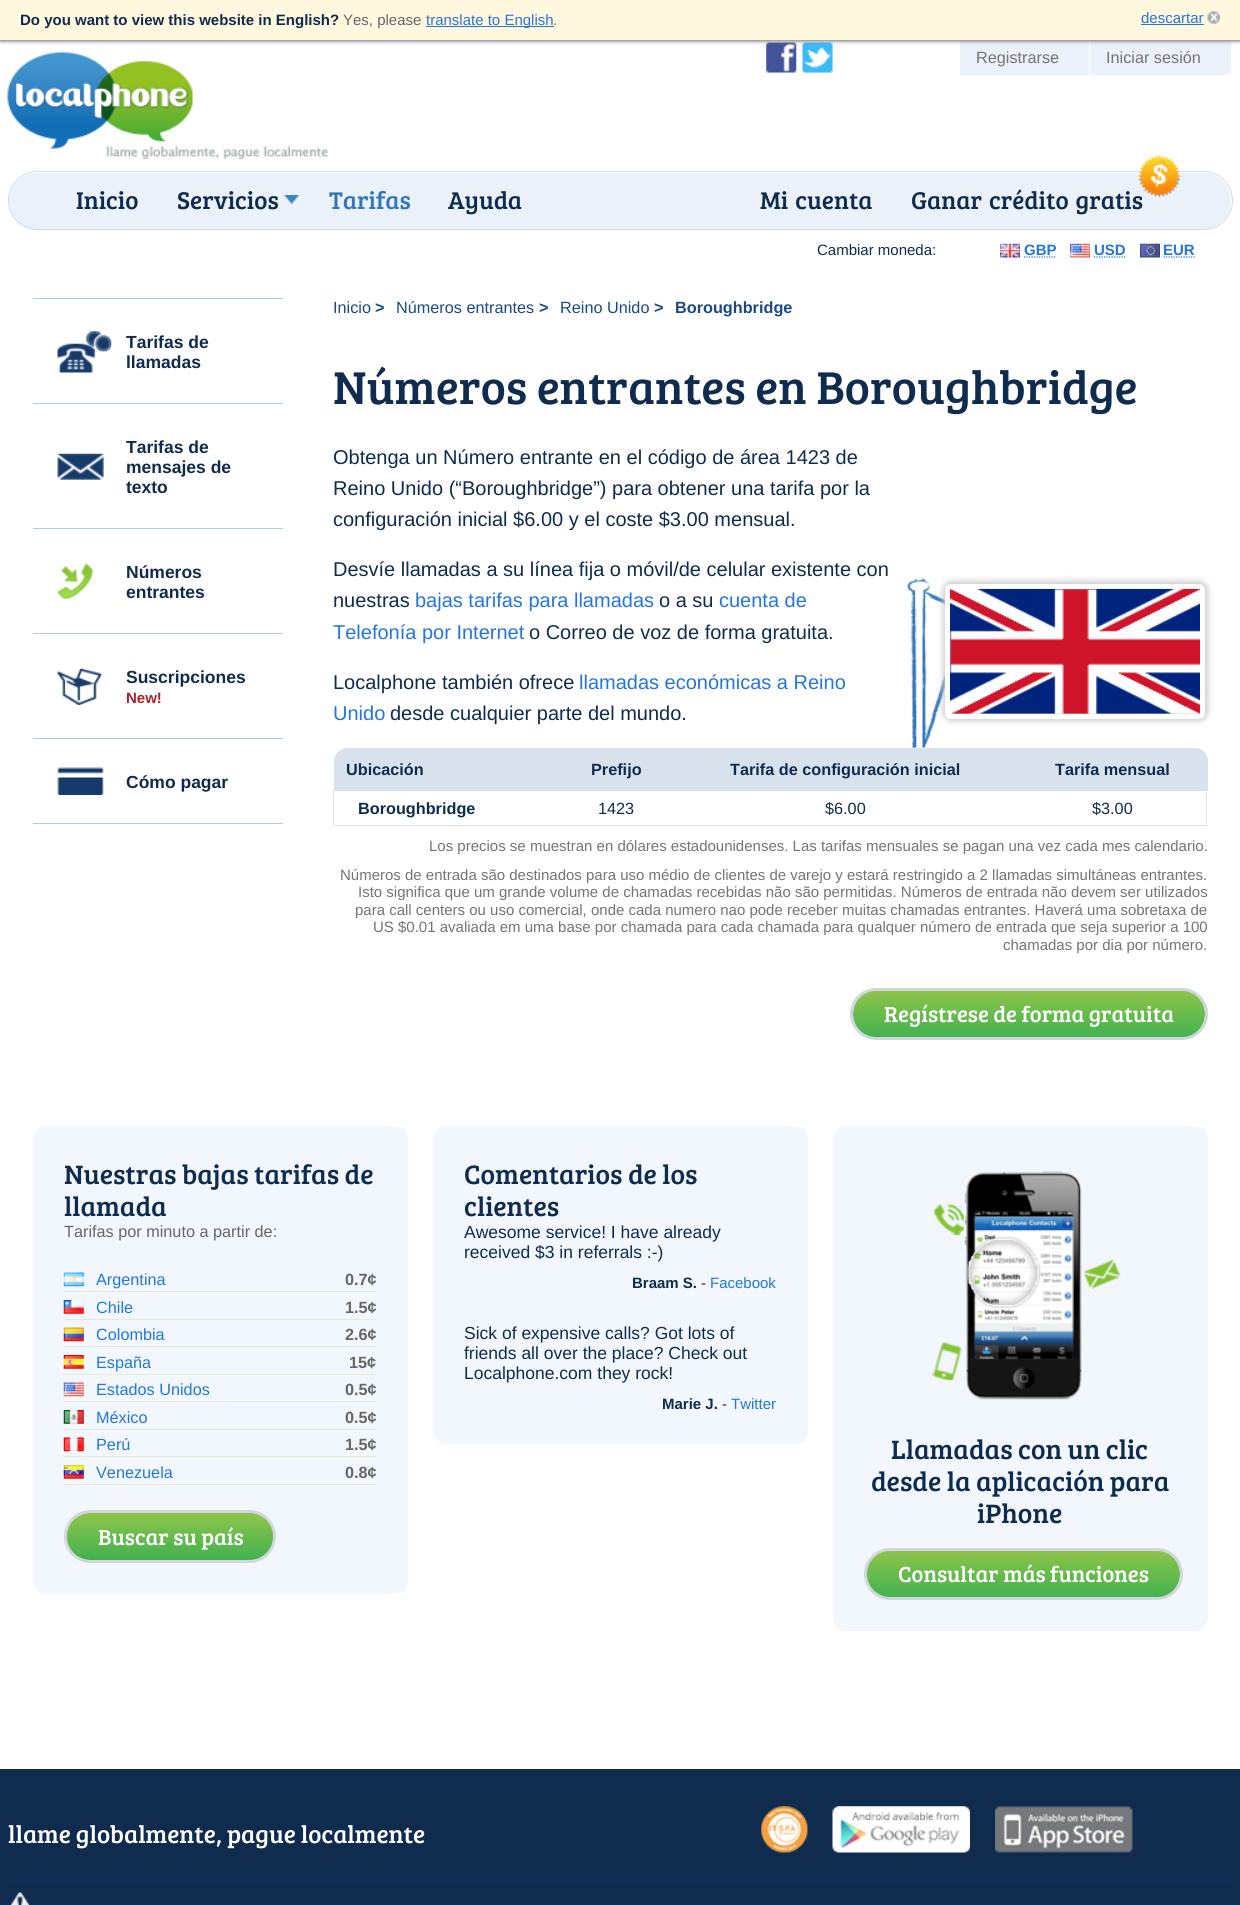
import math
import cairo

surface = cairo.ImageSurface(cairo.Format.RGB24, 1240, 1905)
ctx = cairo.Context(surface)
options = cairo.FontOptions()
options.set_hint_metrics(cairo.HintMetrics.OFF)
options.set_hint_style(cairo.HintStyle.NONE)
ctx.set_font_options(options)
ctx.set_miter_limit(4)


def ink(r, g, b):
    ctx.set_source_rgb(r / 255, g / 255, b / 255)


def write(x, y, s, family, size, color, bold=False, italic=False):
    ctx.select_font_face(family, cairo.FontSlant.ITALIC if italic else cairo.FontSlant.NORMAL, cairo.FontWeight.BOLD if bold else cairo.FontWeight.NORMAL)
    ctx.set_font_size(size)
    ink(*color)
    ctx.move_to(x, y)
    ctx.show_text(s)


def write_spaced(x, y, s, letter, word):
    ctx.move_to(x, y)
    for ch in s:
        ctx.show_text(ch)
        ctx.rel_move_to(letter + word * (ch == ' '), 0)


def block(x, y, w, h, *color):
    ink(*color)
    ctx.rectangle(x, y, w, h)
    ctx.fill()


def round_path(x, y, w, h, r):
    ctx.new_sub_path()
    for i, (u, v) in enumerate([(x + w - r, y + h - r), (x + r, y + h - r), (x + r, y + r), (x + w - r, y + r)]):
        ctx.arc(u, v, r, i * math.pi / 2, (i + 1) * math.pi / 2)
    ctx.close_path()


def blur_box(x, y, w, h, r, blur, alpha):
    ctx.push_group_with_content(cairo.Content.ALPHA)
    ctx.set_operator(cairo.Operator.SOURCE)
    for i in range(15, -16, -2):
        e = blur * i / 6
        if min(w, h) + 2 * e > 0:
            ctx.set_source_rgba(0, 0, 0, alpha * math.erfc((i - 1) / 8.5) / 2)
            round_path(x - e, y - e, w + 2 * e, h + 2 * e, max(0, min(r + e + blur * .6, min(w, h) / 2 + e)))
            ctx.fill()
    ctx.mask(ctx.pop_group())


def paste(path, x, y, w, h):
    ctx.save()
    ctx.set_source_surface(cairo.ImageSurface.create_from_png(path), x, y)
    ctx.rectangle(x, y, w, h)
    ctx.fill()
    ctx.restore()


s1 = dict(family="Liberation Sans", size=15, color=(15, 43, 78), bold=True)
s2 = dict(family="Liberation Sans", size=15, color=(102, 102, 102))
s3 = dict(family="Liberation Sans", size=15, color=(36, 118, 220))
s4 = dict(family="Liberation Sans", size=16.25, color=(116, 116, 118))
s5 = dict(family="Bree Serif", size=25, color=(15, 43, 78))
s6 = dict(family="Bree Serif", size=25, color=(51, 118, 187))
s7 = dict(family="Liberation Sans", size=17.5, color=(15, 43, 78), bold=True)
s8 = dict(family="Liberation Sans", size=15, color=(176, 30, 43), bold=True)
s9 = dict(family="Liberation Sans", size=15, color=(15, 43, 78))
s10 = dict(family="Liberation Sans", size=15, color=(36, 118, 220), bold=True)
s11 = dict(family="Liberation Sans", size=16.25, color=(25, 73, 137))
s12 = dict(family="Liberation Sans", size=16.25, color=(25, 73, 137), bold=True)
s13 = dict(family="Bree Serif", size=47.5, color=(15, 43, 78))
s14 = dict(family="Liberation Sans", size=20, color=(15, 43, 78))
s15 = dict(family="Liberation Sans", size=20, color=(36, 118, 220))
s16 = dict(family="Liberation Sans", size=16.25, color=(15, 43, 78), bold=True)
s17 = dict(family="Liberation Sans", size=16.25, color=(15, 43, 78))
s18 = dict(family="Liberation Sans", size=15, color=(116, 116, 118))
s19 = dict(family="Bree Serif", size=22.5, color=(255, 255, 255))
s20 = dict(family="Bree Serif", size=27.5, color=(15, 43, 78))
s21 = dict(family="Liberation Sans", size=16.25, color=(102, 102, 102))
s22 = dict(family="Liberation Sans", size=16.25, color=(36, 118, 220))
s23 = dict(family="Liberation Sans", size=16.25, color=(102, 102, 102), bold=True)
s24 = dict(family="Liberation Sans", size=17.5, color=(15, 43, 78))
s25 = dict(family="Bree Serif", size=25, color=(255, 255, 255))

ink(255, 255, 255)
ctx.paint()
block(766, 43, 30, 30, 235, 241, 248)
paste("pic3.png", 766, 42, 31, 31)
block(803, 43, 30, 30, 235, 241, 248)
paste("pic4.png", 802, 42, 31, 31)
block(960, 40, 129, 35, 235, 241, 248)
ctx.new_path()
ctx.move_to(1090, 40)
ctx.line_to(1231, 40)
ctx.line_to(1231, 69)
ctx.curve_to(1231, 72.5, 1228.5, 75, 1225, 75)
ctx.line_to(1090, 75)
ctx.close_path()
ctx.fill()
ink(102, 102, 102)
blur_box(0, 1, 1240, 40, 0, 2, 1)
block(0, 0, 1240, 40, 255, 248, 223)
write(20, 25, "Do you want to view this website in English?", **s1)
write(343, 25, "Yes, please", **s2)
block(426, 26, 128, 1, 36, 118, 220)
write(426, 25, "translate to English", **s3)
write(553, 25, ".", **s2)
paste("pic1.png", 1207, 11, 13, 13)
write(1141, 23, "descartar", **s3)
block(1141, 24, 63, 1, 36, 118, 220)
paste("pic2.png", 7, 52, 321, 107)
write(976, 63, "Registrarse", **s4)
write(1106, 63, "Iniciar sesión", **s4)
ink(235, 241, 248)
round_path(9, 173, 1222, 56, 28)
ctx.fill()
round_path(8.5, 171.5, 1224, 58, 29)
ctx.set_source_rgba(0.2, 0.463, 0.733, 0.25)
ctx.set_line_width(1)
ctx.stroke()
write(76, 209, "Inicio", **s5)
paste("pic5.png", 283, 195, 17, 9)
write(177, 209, "Servicios", **s5)
write(329, 209, "Tarifas", **s6)
write(448, 209, "Ayuda", **s5)
write_spaced(760, 209, "Mi cuenta", 0, 2)
write_spaced(911, 209, "Ganar crédito gratis", 0, 2)
paste("pic6.png", 1138, 154, 43, 44)
block(33, 298, 250, 1, 175, 202, 229)
paste("pic7.png", 57, 331, 55, 42)
block(33, 403, 250, 1, 175, 202, 229)
write(126, 348, "Tarifas de", **s7)
write(126, 368, "llamadas", **s7)
paste("pic8.png", 57, 453, 47, 27)
block(33, 528, 250, 1, 175, 202, 229)
write(126, 453, "Tarifas de", **s7)
write(126, 473, "mensajes de", **s7)
write(126, 493, "texto", **s7)
paste("pic9.png", 57, 563, 36, 36)
block(33, 633, 250, 1, 175, 202, 229)
write(126, 578, "Números", **s7)
write(126, 598, "entrantes", **s7)
paste("pic10.png", 57, 668, 45, 37)
block(33, 738, 250, 1, 175, 202, 229)
write(126, 683, "Suscripciones", **s7)
write(126, 703, "New!", **s8)
paste("pic11.png", 57, 767, 47, 28)
block(33, 823, 250, 1, 175, 202, 229)
write(126, 788, "Cómo pagar", **s7)
write(817, 255, "Cambiar moneda:", **s9)
paste("pic12.png", 1000, 243, 20, 15)
write(1024, 255, "GBP", **s10)
ctx.new_path()
ctx.move_to(1024, 257)
ctx.line_to(1056.5, 257)
ctx.set_line_width(1.2)
ctx.set_dash([1.25, 1.25])
ctx.stroke()
paste("pic13.png", 1070, 243, 20, 15)
write(1094, 255, "USD", **s10)
ctx.new_path()
ctx.move_to(1094, 257)
ctx.line_to(1126, 257)
ctx.stroke()
paste("pic14.png", 1140, 243, 20, 15)
write(1163, 255, "EUR", **s10)
ctx.new_path()
ctx.move_to(1163.5, 257)
ctx.line_to(1195, 257)
ctx.stroke()
write(333, 313, "Inicio", **s11)
write(375, 313, ">", **s12)
write(396, 313, "Números entrantes", **s11)
write(539, 313, ">", **s12)
write(560, 313, "Reino Unido", **s11)
write(654, 313, ">", **s12)
write(675, 313, "Boroughbridge", **s12)
write(333, 404, "Números entrantes en Boroughbridge", **s13)
write(333, 464, "Obtenga un Número entrante en el código de área 1423 de", **s14)
write(333, 495, "Reino Unido (“Boroughbridge”) para obtener una tarifa por la", **s14)
write(333, 526, "configuración inicial $6.00 y el coste $3.00 mensual.", **s14)
write(333, 576, "Desvíe llamadas a su línea fija o móvil/de celular existente con", **s14)
write(333, 607, "nuestras", **s14)
write(415, 607, "bajas tarifas para llamadas", **s15)
write(659, 607, "o a su", **s14)
write(719, 607, "cuenta de", **s15)
write(333, 639, "Telefonía por Internet", **s15)
write(529, 639, "o Correo de voz de forma gratuita.", **s14)
paste("pic15.png", 907, 577, 38, 171)
ink(204, 204, 204)
blur_box(943, 581, 265, 140, 9, 3, 1)
round_path(947.5, 586.5, 255, 130, 3.5)
ink(255, 255, 255)
ctx.set_line_width(5)
ctx.set_dash([])
ctx.stroke()
paste("pic16.png", 950, 588, 250, 126)
write(333, 689, "Localphone también ofrece", **s14)
write(579, 689, "llamadas económicas a Reino", **s15)
write(333, 720, "Unido", **s15)
write(390, 720, "desde cualquier parte del mundo.", **s14)
ink(216, 226, 237)
ctx.new_path()
ctx.move_to(347, 748)
ctx.line_to(559, 748)
ctx.line_to(559, 791)
ctx.line_to(334, 791)
ctx.line_to(334, 761)
ctx.curve_to(334, 754, 340, 748, 347, 748)
ctx.close_path()
ctx.fill()
write(346, 775, "Ubicación", **s16)
block(559, 748, 459, 43, 216, 226, 237)
write(591, 775, "Prefijo", **s16)
write(730, 775, "Tarifa de configuración inicial", **s16)
ink(216, 226, 237)
ctx.new_path()
ctx.move_to(1018, 748)
ctx.line_to(1195, 748)
ctx.curve_to(1202, 748, 1208, 754, 1208, 761)
ctx.line_to(1208, 791)
ctx.line_to(1018, 791)
ctx.close_path()
ctx.fill()
write(1055, 775, "Tarifa mensual", **s16)
block(1206, 790, 1, 36, 222, 228, 235)
block(333, 825, 875, 1, 222, 228, 235)
block(333, 790, 1, 36, 222, 228, 235)
write(358, 814, "Boroughbridge", **s16)
write(598, 814, "1423", **s17)
write(825, 814, "$6.00", **s17)
write(1092, 814, "$3.00", **s17)
write(429, 851, "Los precios se muestran en dólares estadounidenses. Las tarifas mensuales se pagan una vez cada mes calendario.", **s18)
write(340, 880, "Números de entrada são destinados para uso médio de clientes de varejo y estará restringido a 2 llamadas simultáneas entrantes.", **s18)
write(358, 897, "Isto significa que um grande volume de chamadas recebidas não são permitidas. Números de entrada não devem ser utilizados", **s18)
write(355, 915, "para call centers ou uso comercial, onde cada numero nao pode receber muitas chamadas entrantes. Haverá uma sobretaxa de", **s18)
write(373, 932, "US $0.01 avaliada em uma base por chamada para cada chamada para qualquer número de entrada que seja superior a 100", **s18)
write(1003, 950, "chamadas por dia por número.", **s18)
gradient = cairo.LinearGradient(1029, 990, 1029, 1038)
gradient.add_color_stop_rgba(0, 0.557, 0.773, 0.29, 1)
gradient.add_color_stop_rgba(1, 0.259, 0.694, 0.314, 1)
ctx.set_source(gradient)
round_path(853, 990, 352, 48, 24)
ctx.fill()
round_path(851.5, 989.5, 355, 49, 24.5)
ink(208, 214, 219)
ctx.set_line_width(3)
ctx.stroke()
write(884, 1022, "Regístrese de forma gratuita", **s19)
ink(241, 247, 253)
round_path(33, 1126, 375, 468, 13)
ctx.fill()
write(64, 1184, "Nuestras bajas tarifas de", **s20)
write(64, 1216, "llamada", **s20)
write(64, 1237, "Tarifas por minuto a partir de:", **s21)
block(64, 1291, 312, 1, 231, 232, 214)
paste("pic17.png", 63, 1272, 21, 15)
write(96, 1285, "Argentina", **s22)
write(345, 1285, "0.7¢", **s23)
block(64, 1319, 312, 1, 231, 232, 214)
paste("pic18.png", 63, 1300, 21, 14)
write(96, 1313, "Chile", **s22)
write(345, 1313, "1.5¢", **s23)
block(64, 1346, 312, 1, 231, 232, 214)
paste("pic19.png", 63, 1327, 21, 15)
write(96, 1340, "Colombia", **s22)
write(345, 1340, "2.6¢", **s23)
block(64, 1374, 312, 1, 231, 232, 214)
paste("pic20.png", 63, 1355, 21, 14)
write(96, 1368, "España", **s22)
write(349, 1368, "15¢", **s23)
block(64, 1401, 312, 1, 231, 232, 214)
paste("pic21.png", 63, 1382, 21, 15)
write(96, 1395, "Estados Unidos", **s22)
write(345, 1395, "0.5¢", **s23)
block(64, 1429, 312, 1, 231, 232, 214)
paste("pic22.png", 63, 1410, 21, 14)
write(96, 1423, "México", **s22)
write(345, 1423, "0.5¢", **s23)
block(64, 1456, 312, 1, 231, 232, 214)
paste("pic23.png", 63, 1437, 21, 15)
write(96, 1450, "Perú", **s22)
write(345, 1450, "1.5¢", **s23)
block(64, 1484, 312, 1, 231, 232, 214)
paste("pic24.png", 63, 1465, 21, 14)
write(96, 1478, "Venezuela", **s22)
write(345, 1478, "0.8¢", **s23)
gradient = cairo.LinearGradient(170, 1513, 170, 1560)
gradient.add_color_stop_rgba(0, 0.557, 0.773, 0.29, 1)
gradient.add_color_stop_rgba(1, 0.259, 0.694, 0.314, 1)
ctx.set_source(gradient)
round_path(66, 1513, 208, 47, 23.5)
ctx.fill()
round_path(65.5, 1511.5, 209, 50, 25)
ink(208, 214, 219)
ctx.stroke()
write(98, 1545, "Buscar su país", **s19)
ink(241, 247, 253)
round_path(433, 1126, 375, 318, 13)
ctx.fill()
write(464, 1184, "Comentarios de los", **s20)
write(464, 1216, "clientes", **s20)
write(464, 1238, "Awesome service! I have already", **s24)
write(464, 1258, "received $3 in referrals :-)", **s24)
write(632, 1288, "Braam S.", **s1)
write(701, 1288, "-", **s9)
write(710, 1288, "Facebook", **s3)
write(464, 1339, "Sick of expensive calls? Got lots of", **s24)
write(464, 1359, "friends all over the place? Check out", **s24)
write(464, 1379, "Localphone.com they rock!", **s24)
write(662, 1409, "Marie J.", **s1)
write(722, 1409, "-", **s9)
write(731, 1409, "Twitter", **s3)
ink(241, 247, 253)
round_path(833, 1126, 375, 505, 13)
ctx.fill()
paste("pic25.png", 932, 1171, 189, 229)
write(891, 1459, "Llamadas con un clic", **s20)
write(871, 1491, "desde la aplicación para", **s20)
write(977, 1523, "iPhone", **s20)
gradient = cairo.LinearGradient(1023, 1550, 1023, 1598)
gradient.add_color_stop_rgba(0, 0.557, 0.773, 0.29, 1)
gradient.add_color_stop_rgba(1, 0.259, 0.694, 0.314, 1)
ctx.set_source(gradient)
round_path(866, 1550, 314, 48, 24)
ctx.fill()
round_path(865.5, 1549.5, 316, 49, 24.5)
ink(208, 214, 219)
ctx.stroke()
write(898, 1582, "Consultar más funciones", **s19)
block(0, 1769, 1240, 136, 15, 43, 78)
write(8, 1843, "llame globalmente, pague localmente", **s25)
paste("pic26.png", 761, 1806, 47, 47)
paste("pic27.png", 832, 1806, 138, 47)
paste("pic28.png", 995, 1806, 138, 47)
paste("pic29.png", 10, 1892, 20, 13)
block(8, 1880, 1225, 1, 8, 51, 107)
surface.write_to_png("screenshot.png")
